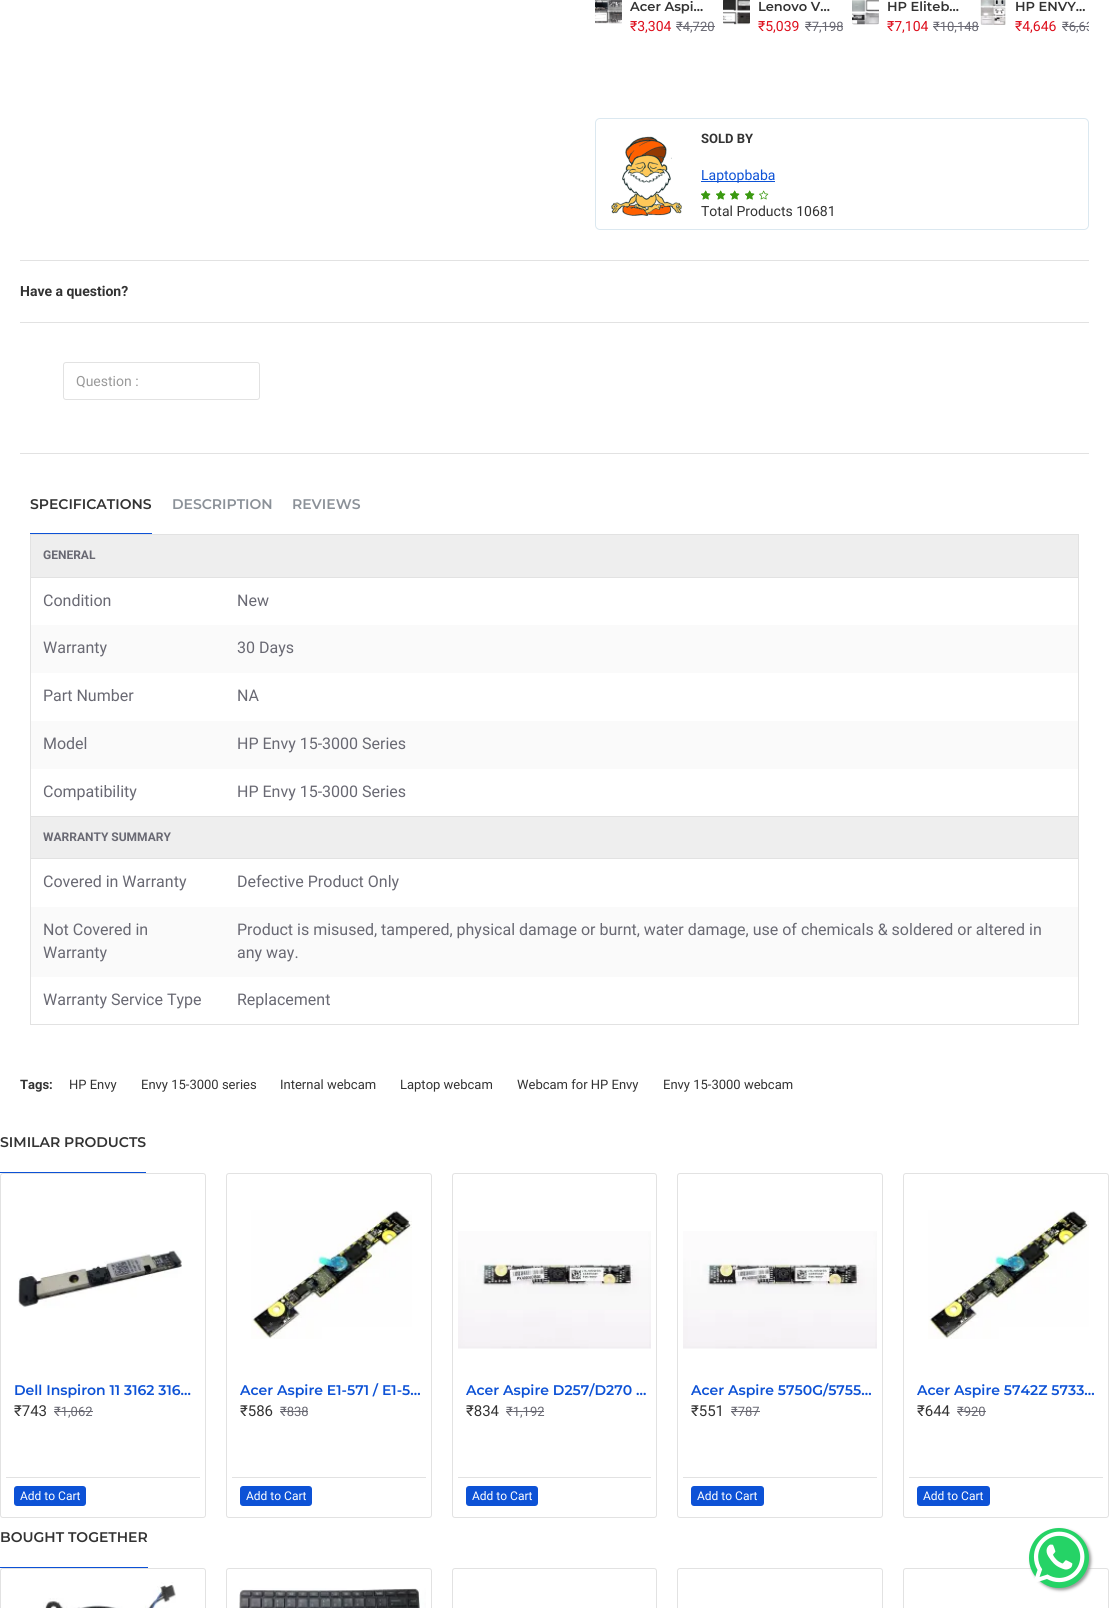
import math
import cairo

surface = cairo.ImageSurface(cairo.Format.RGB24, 1109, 1608)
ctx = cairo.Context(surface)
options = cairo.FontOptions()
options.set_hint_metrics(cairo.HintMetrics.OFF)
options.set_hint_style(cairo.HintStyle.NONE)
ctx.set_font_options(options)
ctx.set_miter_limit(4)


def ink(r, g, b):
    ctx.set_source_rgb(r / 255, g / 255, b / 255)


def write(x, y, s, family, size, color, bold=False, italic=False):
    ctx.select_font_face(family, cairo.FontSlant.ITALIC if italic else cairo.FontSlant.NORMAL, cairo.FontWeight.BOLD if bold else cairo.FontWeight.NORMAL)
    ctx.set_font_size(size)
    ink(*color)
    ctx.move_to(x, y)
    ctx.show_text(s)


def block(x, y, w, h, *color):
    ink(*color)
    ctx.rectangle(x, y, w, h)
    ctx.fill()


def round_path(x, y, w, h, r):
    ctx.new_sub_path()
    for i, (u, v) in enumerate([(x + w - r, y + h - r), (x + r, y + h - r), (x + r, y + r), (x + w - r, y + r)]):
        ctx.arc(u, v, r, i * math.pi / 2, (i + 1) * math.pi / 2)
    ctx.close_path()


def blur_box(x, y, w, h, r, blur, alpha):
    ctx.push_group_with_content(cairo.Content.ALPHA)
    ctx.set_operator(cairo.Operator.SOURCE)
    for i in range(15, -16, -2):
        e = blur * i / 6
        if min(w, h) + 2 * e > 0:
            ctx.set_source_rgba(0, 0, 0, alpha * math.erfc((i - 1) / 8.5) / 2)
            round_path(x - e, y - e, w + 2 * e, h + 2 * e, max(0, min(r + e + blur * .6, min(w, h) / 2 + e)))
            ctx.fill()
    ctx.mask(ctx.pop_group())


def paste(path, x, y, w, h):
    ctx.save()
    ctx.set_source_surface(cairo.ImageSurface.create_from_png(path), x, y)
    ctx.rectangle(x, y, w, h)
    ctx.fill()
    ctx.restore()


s1 = dict(family="Montserrat SemiBold", size=13, color=(51, 51, 51))
s2 = dict(family="Roboto", size=14, color=(221, 14, 28))
s3 = dict(family="Roboto", size=13, color=(105, 105, 115))
s4 = dict(family="Roboto", size=13, color=(51, 51, 51), bold=True)
s5 = dict(family="Roboto", size=14, color=(13, 82, 214))
s6 = dict(family="Roboto", size=14, color=(51, 51, 51))
s7 = dict(family="Roboto", size=14, color=(51, 51, 51), bold=True)
s8 = dict(family="Roboto", size=14, color=(153, 153, 153))
s9 = dict(family="Montserrat SemiBold", size=14, color=(51, 51, 51))
s10 = dict(family="Montserrat SemiBold", size=14, color=(139, 145, 152))
s11 = dict(family="Roboto", size=12, color=(105, 105, 115), bold=True)
s12 = dict(family="Roboto", size=16, color=(105, 105, 115))
s13 = dict(family="Roboto", size=13, color=(51, 51, 51))
s14 = dict(family="Montserrat SemiBold", size=14, color=(13, 82, 214))
s15 = dict(family="Roboto", size=15, color=(51, 51, 51))
s16 = dict(family="Roboto", size=12, color=(255, 255, 255))

ink(255, 255, 255)
ctx.paint()
paste("pic1.png", 595, 0, 27, 24)
write(630, 11, "Acer Aspi…", **s1)
write(630, 31, "₹3,304", **s2)
write(676, 31, "₹4,720", **s3)
block(676, 26, 39, 1, 105, 105, 115)
paste("pic2.png", 723, 0, 27, 25)
write(758, 11, "Lenovo V…", **s1)
write(758, 31, "₹5,039", **s2)
write(805, 31, "₹7,198", **s3)
block(805, 26, 38, 1, 105, 105, 115)
paste("pic3.png", 852, 0, 27, 25)
write(887, 11, "HP Eliteb…", **s1)
write(887, 31, "₹7,104", **s2)
write(933, 31, "₹10,148", **s3)
block(933, 26, 46, 1, 105, 105, 115)
paste("pic4.png", 980, 0, 26, 25)
write(1015, 11, "HP ENVY…", **s1)
write(1015, 31, "₹4,646", **s2)
ctx.save()
ctx.rectangle(595, 0, 494, 104)
ctx.clip()
write(1062, 31, "₹6,63", **s3)
ctx.restore()
block(1062, 26, 27, 1, 105, 105, 115)
round_path(595.5, 118.5, 493, 111, 4.5)
ink(219, 232, 240)
ctx.set_line_width(1)
ctx.stroke()
paste("pic5.png", 611, 136, 71, 80)
write(701, 143, "SOLD BY", **s4)
block(701, 181, 74, 1, 13, 82, 214)
write(701, 180, "Laptopbaba", **s5)
paste("pic6.png", 701, 190, 10, 10)
paste("pic7.png", 701, 190, 10, 10)
paste("pic6.png", 716, 190, 10, 10)
paste("pic7.png", 716, 190, 10, 10)
paste("pic6.png", 730, 190, 10, 10)
paste("pic7.png", 730, 190, 10, 10)
paste("pic6.png", 745, 190, 10, 10)
paste("pic7.png", 745, 190, 10, 10)
paste("pic8.png", 759, 190, 10, 10)
write(701, 216, "Total Products 10681", **s6)
block(20, 260, 1069, 1, 226, 226, 226)
write(20, 296, "Have a question?", **s7)
block(20, 322, 1069, 1, 226, 226, 226)
round_path(63.5, 362.5, 196, 37, 2.5)
ctx.stroke()
write(76, 386, "Question :", **s8)
block(20, 453, 1069, 1, 226, 226, 226)
block(30, 533, 122, 1, 13, 82, 214)
write(30, 509, "SPECIFICATIONS", **s9)
write(172, 509, "DESCRIPTION", **s10)
write(292, 509, "REVIEWS", **s10)
ctx.rectangle(30.5, 534.5, 1048, 490)
ink(226, 226, 226)
ctx.stroke()
block(31, 535, 1047, 42, 238, 238, 238)
block(31, 577, 1047, 1, 226, 226, 226)
write(43, 559, "GENERAL", **s11)
write(43, 606, "Condition", **s12)
write(237, 606, "New", **s12)
block(31, 625, 1047, 48, 250, 250, 250)
write(43, 653, "Warranty", **s12)
write(237, 653, "30 Days", **s12)
write(43, 701, "Part Number", **s12)
write(237, 701, "NA", **s12)
block(31, 721, 1047, 48, 250, 250, 250)
write(43, 749, "Model", **s12)
write(237, 749, "HP Envy 15-3000 Series", **s12)
write(43, 797, "Compatibility", **s12)
write(237, 797, "HP Envy 15-3000 Series", **s12)
block(31, 817, 1047, 41, 238, 238, 238)
block(31, 816, 1047, 1, 226, 226, 226)
block(31, 858, 1047, 1, 226, 226, 226)
write(43, 841, "WARRANTY SUMMARY", **s11)
write(43, 887, "Covered in Warranty", **s12)
write(237, 887, "Defective Product Only", **s12)
block(31, 907, 1047, 70, 250, 250, 250)
write(43, 935, "Not Covered in", **s12)
write(43, 958, "Warranty", **s12)
write(237, 935, "Product is misused, tampered, physical damage or burnt, water damage, use of chemicals & soldered or altered in", **s12)
write(237, 958, "any way.", **s12)
write(43, 1005, "Warranty Service Type", **s12)
write(237, 1005, "Replacement", **s12)
write(20, 1089, "Tags:", **s4)
write(69, 1089, "HP Envy", **s13)
write(141, 1089, "Envy 15-3000 series", **s13)
write(280, 1089, "Internal webcam", **s13)
write(400, 1089, "Laptop webcam", **s13)
write(517, 1089, "Webcam for HP Envy", **s13)
write(663, 1089, "Envy 15-3000 webcam", **s13)
block(0, 1172, 146, 1, 13, 82, 214)
write(0, 1147, "SIMILAR PRODUCTS", **s9)
round_path(0.5, 1173.5, 205, 344, 2.5)
ink(226, 226, 226)
ctx.stroke()
paste("pic9.png", 18, 1250, 164, 58)
write(14, 1395, "Dell Inspiron 11 3162 316…", **s14)
write(14, 1416, "₹743", **s15)
write(54, 1416, "₹1,062", **s3)
block(54, 1411, 39, 1, 105, 105, 115)
block(6, 1477, 194, 1, 226, 226, 226)
ink(13, 82, 214)
round_path(14, 1486, 72, 20, 3)
ctx.fill()
write(20, 1500, "Add to Cart", **s16)
round_path(226.5, 1173.5, 205, 344, 2.5)
ink(226, 226, 226)
ctx.stroke()
paste("pic10.png", 251, 1210, 161, 129)
write(240, 1395, "Acer Aspire E1-571 / E1-5…", **s14)
write(240, 1416, "₹586", **s15)
write(280, 1416, "₹838", **s3)
block(280, 1411, 28, 1, 105, 105, 115)
block(232, 1477, 194, 1, 226, 226, 226)
ink(13, 82, 214)
round_path(240, 1486, 72, 20, 3)
ctx.fill()
write(246, 1500, "Add to Cart", **s16)
round_path(452.5, 1173.5, 204, 344, 2.5)
ink(226, 226, 226)
ctx.stroke()
paste("pic11.png", 458, 1231, 193, 118)
write(466, 1395, "Acer Aspire D257/D270 …", **s14)
write(466, 1416, "₹834", **s15)
write(506, 1416, "₹1,192", **s3)
block(506, 1411, 38, 1, 105, 105, 115)
block(458, 1477, 193, 1, 226, 226, 226)
ink(13, 82, 214)
round_path(466, 1486, 72, 20, 3)
ctx.fill()
write(472, 1500, "Add to Cart", **s16)
round_path(677.5, 1173.5, 205, 344, 2.5)
ink(226, 226, 226)
ctx.stroke()
paste("pic12.png", 683, 1231, 194, 118)
write(691, 1395, "Acer Aspire 5750G/5755…", **s14)
write(691, 1416, "₹551", **s15)
write(731, 1416, "₹787", **s3)
block(731, 1411, 29, 1, 105, 105, 115)
block(683, 1477, 194, 1, 226, 226, 226)
ink(13, 82, 214)
round_path(691, 1486, 73, 20, 3)
ctx.fill()
write(697, 1500, "Add to Cart", **s16)
round_path(903.5, 1173.5, 205, 344, 2.5)
ink(226, 226, 226)
ctx.stroke()
paste("pic13.png", 928, 1210, 161, 129)
write(917, 1395, "Acer Aspire 5742Z 5733…", **s14)
write(917, 1416, "₹644", **s15)
write(957, 1416, "₹920", **s3)
block(957, 1411, 29, 1, 105, 105, 115)
block(909, 1477, 194, 1, 226, 226, 226)
ink(13, 82, 214)
round_path(917, 1486, 73, 20, 3)
ctx.fill()
write(923, 1500, "Add to Cart", **s16)
block(0, 1567, 148, 1, 13, 82, 214)
write(0, 1542, "BOUGHT TOGETHER", **s9)
round_path(0.5, 1568.5, 205, 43, 2.5)
ink(226, 226, 226)
ctx.stroke()
paste("pic14.png", 43, 1582, 133, 26)
round_path(226.5, 1568.5, 205, 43, 2.5)
ctx.stroke()
paste("pic15.png", 239, 1588, 187, 20)
round_path(452.5, 1568.5, 204, 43, 2.5)
ctx.stroke()
round_path(677.5, 1568.5, 205, 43, 2.5)
ctx.stroke()
round_path(903.5, 1568.5, 205, 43, 2.5)
ctx.stroke()
ink(153, 153, 153)
blur_box(1031, 1530, 60, 60, 30, 1.5, 1)
ink(37, 211, 102)
ctx.arc(1059, 1558, 30, 0, 2 * math.pi)
ctx.fill()
paste("pic16.png", 1033, 1531, 52, 52)
surface.write_to_png("screenshot.png")
